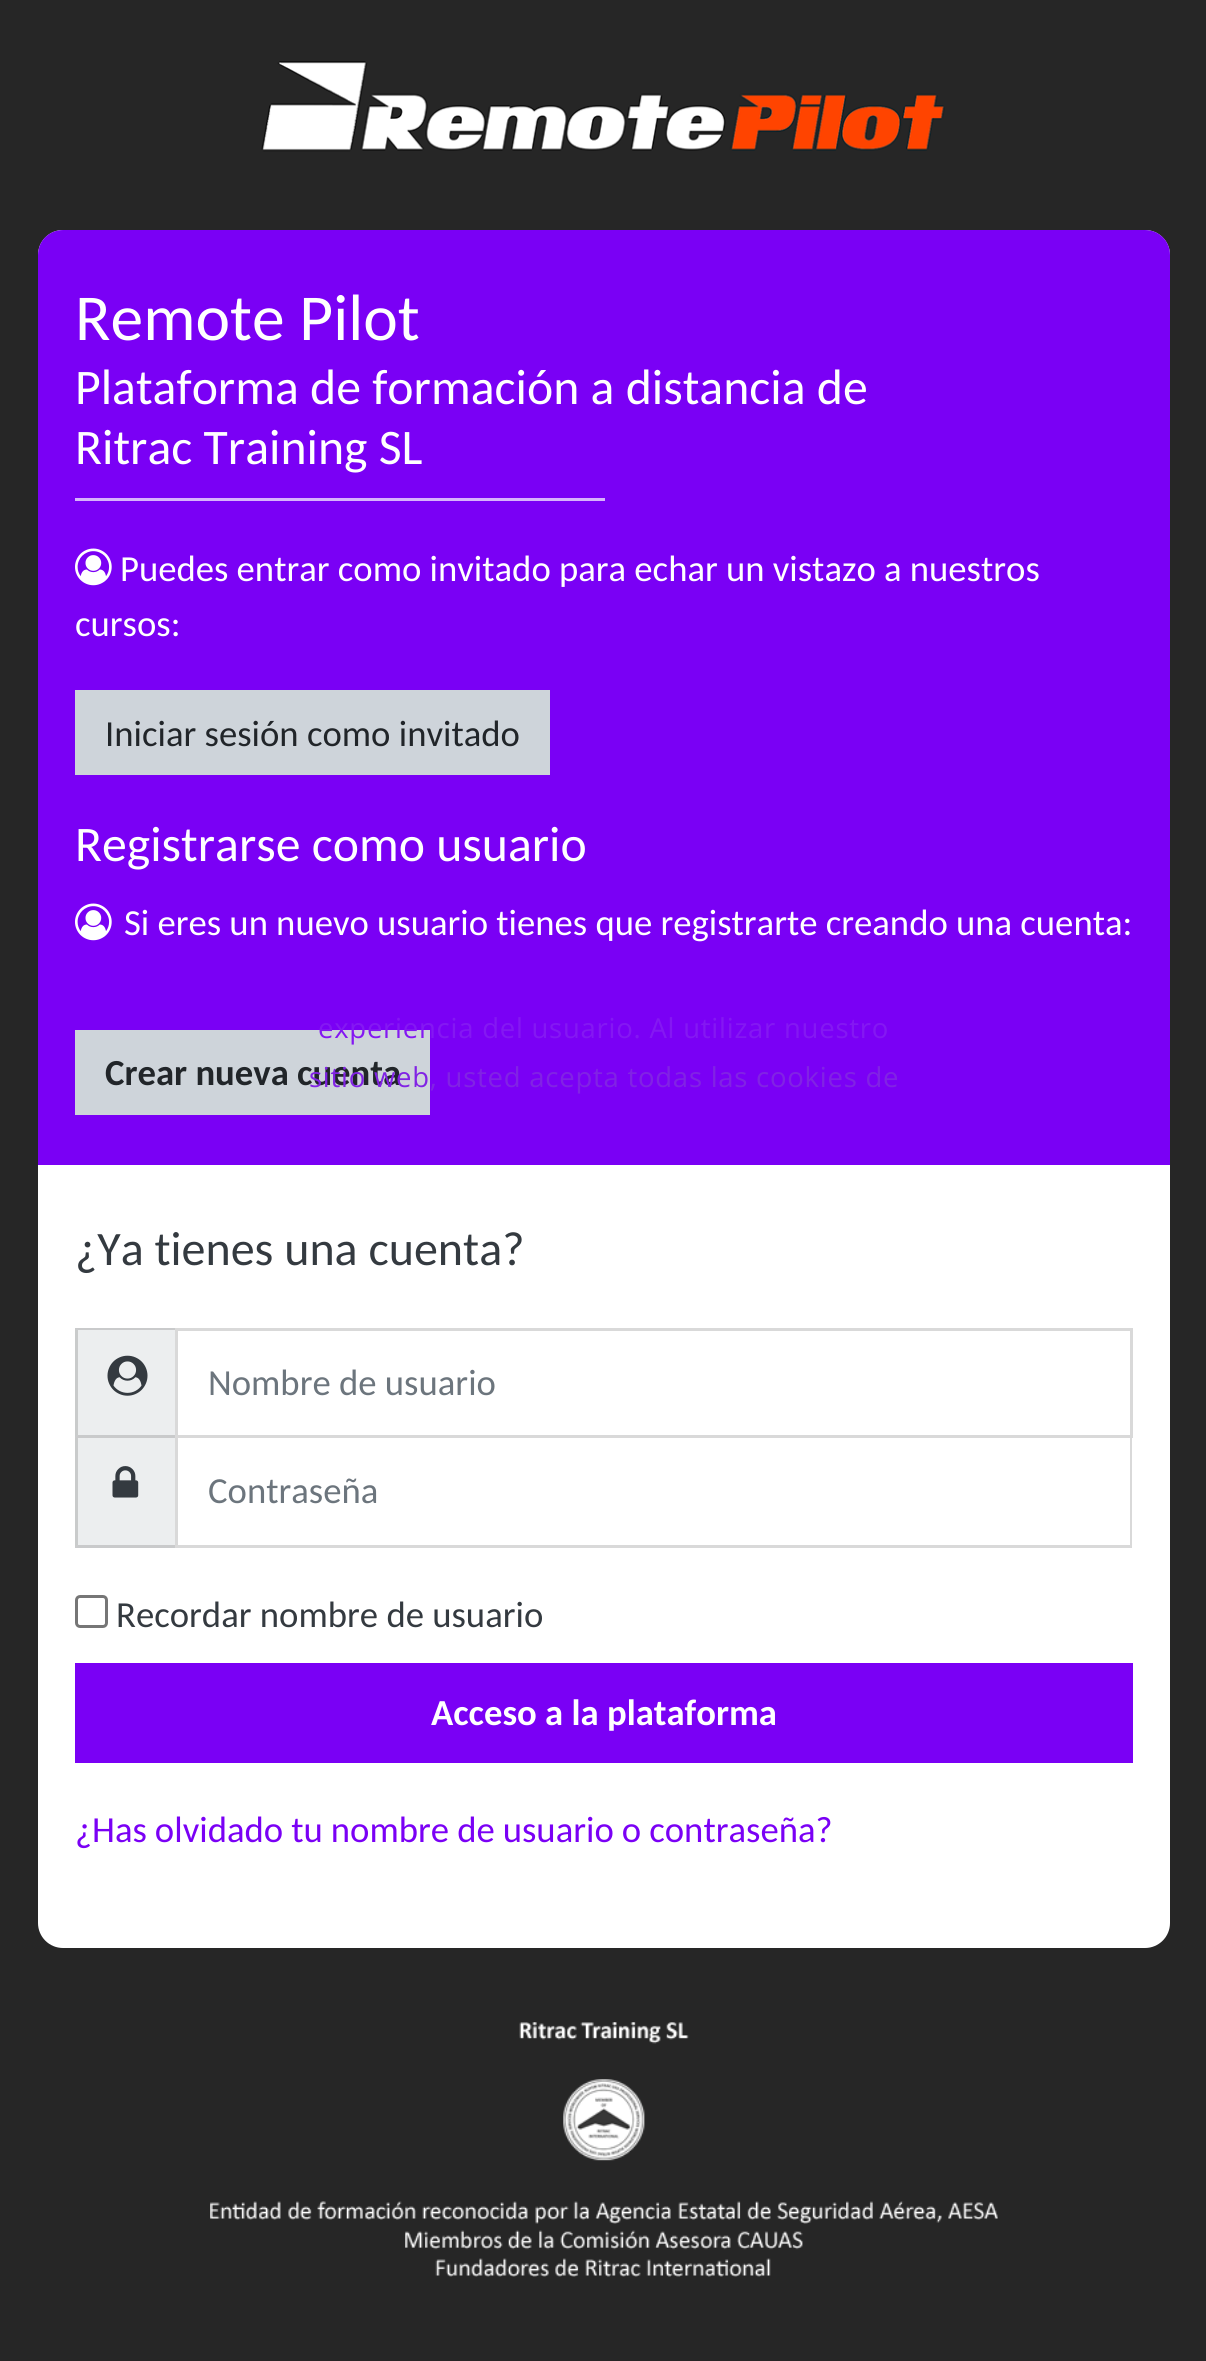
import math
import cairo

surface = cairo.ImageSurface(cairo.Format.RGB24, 1206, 2361)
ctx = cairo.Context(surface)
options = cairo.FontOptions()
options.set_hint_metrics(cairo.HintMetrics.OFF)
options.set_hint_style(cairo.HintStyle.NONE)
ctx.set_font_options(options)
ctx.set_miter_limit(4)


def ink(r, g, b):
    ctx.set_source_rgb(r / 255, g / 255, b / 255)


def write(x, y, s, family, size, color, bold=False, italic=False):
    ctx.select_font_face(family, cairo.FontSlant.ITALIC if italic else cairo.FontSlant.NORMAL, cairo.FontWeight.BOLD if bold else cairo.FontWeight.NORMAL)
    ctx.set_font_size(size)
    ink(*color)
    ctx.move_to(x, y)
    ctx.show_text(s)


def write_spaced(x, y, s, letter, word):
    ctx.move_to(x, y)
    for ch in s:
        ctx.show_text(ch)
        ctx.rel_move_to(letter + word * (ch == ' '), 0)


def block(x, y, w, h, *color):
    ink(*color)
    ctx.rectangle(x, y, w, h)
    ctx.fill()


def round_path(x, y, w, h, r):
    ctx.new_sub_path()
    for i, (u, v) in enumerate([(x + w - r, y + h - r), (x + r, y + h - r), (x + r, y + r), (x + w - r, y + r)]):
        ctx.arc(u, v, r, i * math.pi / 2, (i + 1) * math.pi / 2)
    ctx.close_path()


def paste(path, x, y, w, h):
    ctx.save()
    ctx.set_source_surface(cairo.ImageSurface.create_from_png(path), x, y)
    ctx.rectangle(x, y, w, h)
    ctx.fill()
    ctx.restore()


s1 = dict(family="Carlito", size=65.5, color=(255, 255, 255))
s2 = dict(family="Carlito", size=49.75, color=(255, 255, 255))
s3 = dict(family="Carlito", size=36.7, color=(255, 255, 255))
s4 = dict(family="Carlito", size=36.7, color=(33, 37, 41))
s5 = dict(family="Carlito", size=36.7, color=(33, 37, 41), bold=True)
s6 = dict(family="Carlito", size=48, color=(52, 58, 64))
s7 = dict(family="Carlito", size=36.7, color=(108, 117, 125))
s8 = dict(family="Carlito", size=36.7, color=(52, 58, 64))
s9 = dict(family="Carlito", size=36.7, color=(255, 255, 255), bold=True)

ink(38, 38, 38)
ctx.paint()
paste("pic1.png", 261, 61, 684, 91)
ink(255, 255, 255)
round_path(38, 230, 1132, 1718, 25)
ctx.fill()
ink(122, 0, 245)
ctx.new_path()
ctx.move_to(63, 230)
ctx.line_to(1145, 230)
ctx.curve_to(1159, 230, 1170, 241, 1170, 255)
ctx.line_to(1170, 1165)
ctx.line_to(38, 1165)
ctx.line_to(38, 255)
ctx.curve_to(38, 241, 49, 230, 63, 230)
ctx.close_path()
ctx.fill()
write(75, 340, "Remote Pilot", **s1)
write(75, 404, "Plataforma de formación a distancia de", **s2)
write(75, 464, "Ritrac Training SL", **s2)
block(75, 498, 530, 3, 215, 179, 252)
paste("pic2.png", 75, 548, 37, 38)
ctx.set_font_size(36.7)
ink(255, 255, 255)
write_spaced(120, 581, "Puedes entrar como invitado para echar un vistazo a nuestros", 0, -0.1)
write(75, 636, "cursos:", **s3)
block(75, 690, 475, 85, 206, 212, 218)
write(105, 746, "Iniciar sesión como invitado", **s4)
write(75, 861, "Registrarse como usuario", **s2)
paste("pic2.png", 75, 903, 37, 38)
ctx.set_font_size(36.7)
write_spaced(124, 935, "Si eres un nuevo usuario tienes que registrarte creando una cuenta:", 0, -0.1)
block(75, 1030, 355, 85, 206, 212, 218)
write(105, 1085, "Crear nueva cuenta", **s5)
write(75, 1265, "¿Ya tienes una cuenta?", **s6)
block(75, 1328, 100, 220, 236, 238, 239)
ink(201, 202, 203)
ctx.new_path()
ctx.move_to(75, 1328)
ctx.line_to(175, 1328)
ctx.line_to(175, 1330)
ctx.line_to(78, 1330)
ctx.close_path()
ctx.fill()
ctx.new_path()
ctx.move_to(175, 1438)
ctx.line_to(75, 1438)
ctx.line_to(78, 1435)
ctx.line_to(175, 1435)
ctx.close_path()
ctx.fill()
ctx.set_source_rgba(0, 0, 0, 0.15)
ctx.new_path()
ctx.move_to(75, 1438)
ctx.line_to(75, 1328)
ctx.line_to(78, 1330)
ctx.line_to(78, 1435)
ctx.close_path()
ctx.fill()
paste("pic3.png", 107, 1355, 41, 41)
ctx.rectangle(176.5, 1329.5, 955, 107)
ink(217, 217, 217)
ctx.set_line_width(3)
ctx.stroke()
write(208, 1395, "Nombre de usuario", **s7)
ink(201, 202, 203)
ctx.new_path()
ctx.move_to(175, 1548)
ctx.line_to(75, 1548)
ctx.line_to(78, 1545)
ctx.line_to(175, 1545)
ctx.close_path()
ctx.fill()
ctx.set_source_rgba(0, 0, 0, 0.15)
ctx.new_path()
ctx.move_to(75, 1548)
ctx.line_to(75, 1438)
ctx.line_to(78, 1438)
ctx.line_to(78, 1545)
ctx.close_path()
ctx.fill()
paste("pic4.png", 112, 1466, 27, 32)
ink(217, 217, 217)
ctx.new_path()
ctx.move_to(1132, 1438)
ctx.line_to(1132, 1548)
ctx.line_to(1130, 1545)
ctx.line_to(1130, 1438)
ctx.close_path()
ctx.fill()
ctx.set_source_rgba(0, 0, 0, 0.15)
ctx.new_path()
ctx.move_to(1132, 1548)
ctx.line_to(175, 1548)
ctx.line_to(178, 1545)
ctx.line_to(1130, 1545)
ctx.close_path()
ctx.fill()
ctx.new_path()
ctx.move_to(175, 1548)
ctx.line_to(175, 1438)
ctx.line_to(178, 1438)
ctx.line_to(178, 1545)
ctx.close_path()
ctx.fill()
write(208, 1503, "Contraseña", **s7)
round_path(76.5, 1596.5, 30, 30, 3.5)
ink(118, 118, 118)
ctx.stroke()
write(116, 1627, "Recordar nombre de usuario", **s8)
block(75, 1663, 1058, 100, 122, 0, 245)
write(431, 1725, "Acceso a la plataforma", **s9)
ctx.select_font_face("Carlito")
ink(122, 0, 245)
write_spaced(75, 1842, "¿Has olvidado tu nombre de usuario o contraseña?", 0, -0.25)
paste("pic5.png", 210, 2022, 788, 255)
ctx.select_font_face("Open Sans")
ctx.set_font_size(27.5)
ink(132, 24, 242)
write_spaced(318, 1038, "experiencia del usuario. Al utilizar nuestro", 0.75, 0)
ink(129, 35, 228)
write_spaced(309, 1087, "sitio web, usted acepta todas las cookies de", 0.75, 0)
surface.write_to_png("screenshot.png")
